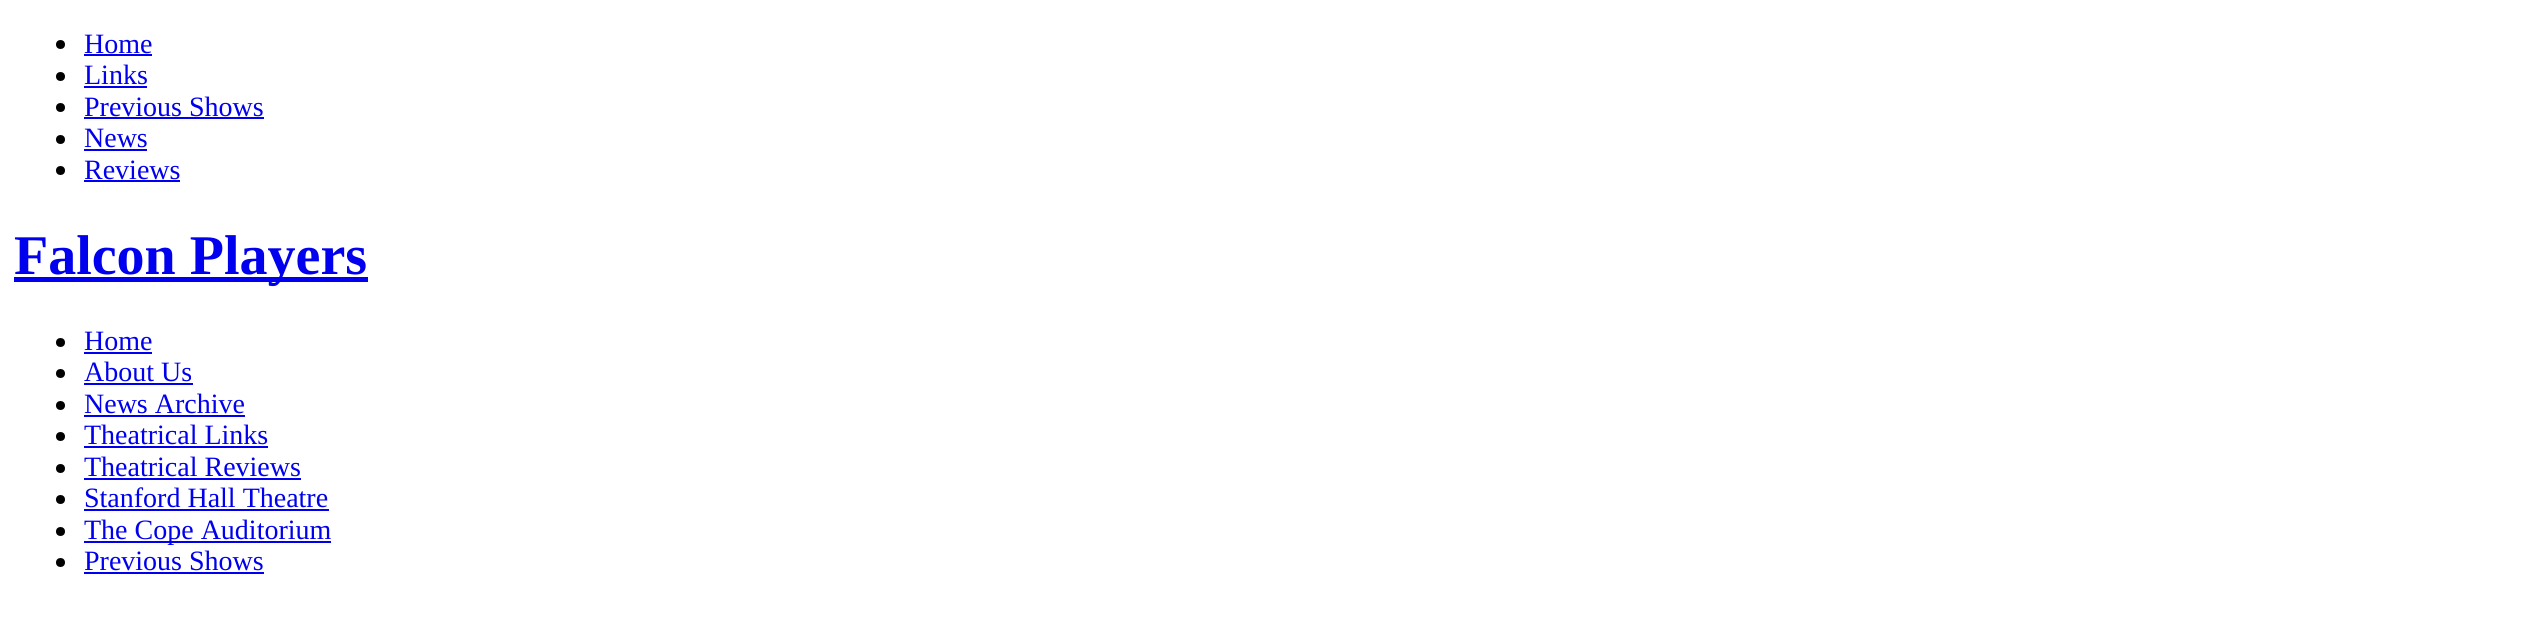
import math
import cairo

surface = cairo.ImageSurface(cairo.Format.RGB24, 2527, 621)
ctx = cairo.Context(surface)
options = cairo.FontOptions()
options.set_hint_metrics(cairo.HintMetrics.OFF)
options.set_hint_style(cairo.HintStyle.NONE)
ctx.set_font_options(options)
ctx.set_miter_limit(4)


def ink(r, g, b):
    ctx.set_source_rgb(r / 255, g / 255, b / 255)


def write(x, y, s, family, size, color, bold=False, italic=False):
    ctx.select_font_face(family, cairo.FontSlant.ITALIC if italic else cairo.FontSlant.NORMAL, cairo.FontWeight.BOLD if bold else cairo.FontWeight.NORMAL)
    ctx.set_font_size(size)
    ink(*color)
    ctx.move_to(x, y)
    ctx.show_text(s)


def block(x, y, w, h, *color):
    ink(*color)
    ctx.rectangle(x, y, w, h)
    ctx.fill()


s1 = dict(family="Liberation Serif", size=28, color=(0, 0, 238))
s2 = dict(family="Liberation Serif", size=56, color=(0, 0, 238), bold=True)

ink(255, 255, 255)
ctx.paint()
ink(0, 0, 0)
ctx.arc(60.5, 44.5, 4.5, 0, 2 * math.pi)
ctx.fill()
write(84, 53, "Home", **s1)
block(84, 54, 68, 2, 0, 0, 238)
ink(0, 0, 0)
ctx.new_path()
ctx.arc(60.5, 76.5, 4.5, 0, 2 * math.pi)
ctx.fill()
write(84, 84, "Links", **s1)
block(84, 86, 63, 2, 0, 0, 238)
ink(0, 0, 0)
ctx.new_path()
ctx.arc(60.5, 107.5, 4.5, 0, 2 * math.pi)
ctx.fill()
write(84, 116, "Previous Shows", **s1)
block(84, 117, 180, 2, 0, 0, 238)
ink(0, 0, 0)
ctx.new_path()
ctx.arc(60.5, 139.5, 4.5, 0, 2 * math.pi)
ctx.fill()
write(84, 147, "News", **s1)
block(84, 149, 63, 2, 0, 0, 238)
ink(0, 0, 0)
ctx.new_path()
ctx.arc(60.5, 170.5, 4.5, 0, 2 * math.pi)
ctx.fill()
write(84, 179, "Reviews", **s1)
block(84, 180, 96, 2, 0, 0, 238)
block(14, 277, 354, 5, 0, 0, 238)
write(14, 274, "Falcon Players", **s2)
ink(0, 0, 0)
ctx.new_path()
ctx.arc(60.5, 342.5, 4.5, 0, 2 * math.pi)
ctx.fill()
write(84, 350, "Home", **s1)
block(84, 352, 68, 2, 0, 0, 238)
ink(0, 0, 0)
ctx.new_path()
ctx.arc(60.5, 373.5, 4.5, 0, 2 * math.pi)
ctx.fill()
write(84, 381, "About Us", **s1)
block(84, 383, 109, 2, 0, 0, 238)
ink(0, 0, 0)
ctx.new_path()
ctx.arc(60.5, 405.5, 4.5, 0, 2 * math.pi)
ctx.fill()
write(84, 413, "News Archive", **s1)
block(84, 415, 161, 2, 0, 0, 238)
ink(0, 0, 0)
ctx.new_path()
ctx.arc(60.5, 436.5, 4.5, 0, 2 * math.pi)
ctx.fill()
write(84, 444, "Theatrical Links", **s1)
block(84, 446, 184, 2, 0, 0, 238)
ink(0, 0, 0)
ctx.new_path()
ctx.arc(60.5, 468.5, 4.5, 0, 2 * math.pi)
ctx.fill()
write(84, 476, "Theatrical Reviews", **s1)
block(84, 478, 217, 2, 0, 0, 238)
ink(0, 0, 0)
ctx.new_path()
ctx.arc(60.5, 499.5, 4.5, 0, 2 * math.pi)
ctx.fill()
write(84, 507, "Stanford Hall Theatre", **s1)
block(84, 509, 245, 2, 0, 0, 238)
ink(0, 0, 0)
ctx.new_path()
ctx.arc(60.5, 531.5, 4.5, 0, 2 * math.pi)
ctx.fill()
block(84, 541, 247, 2, 0, 0, 238)
write(84, 539, "The Cope Auditorium", **s1)
ink(0, 0, 0)
ctx.new_path()
ctx.arc(60.5, 562.5, 4.5, 0, 2 * math.pi)
ctx.fill()
write(84, 570, "Previous Shows", **s1)
block(84, 572, 180, 2, 0, 0, 238)
surface.write_to_png("screenshot.png")
